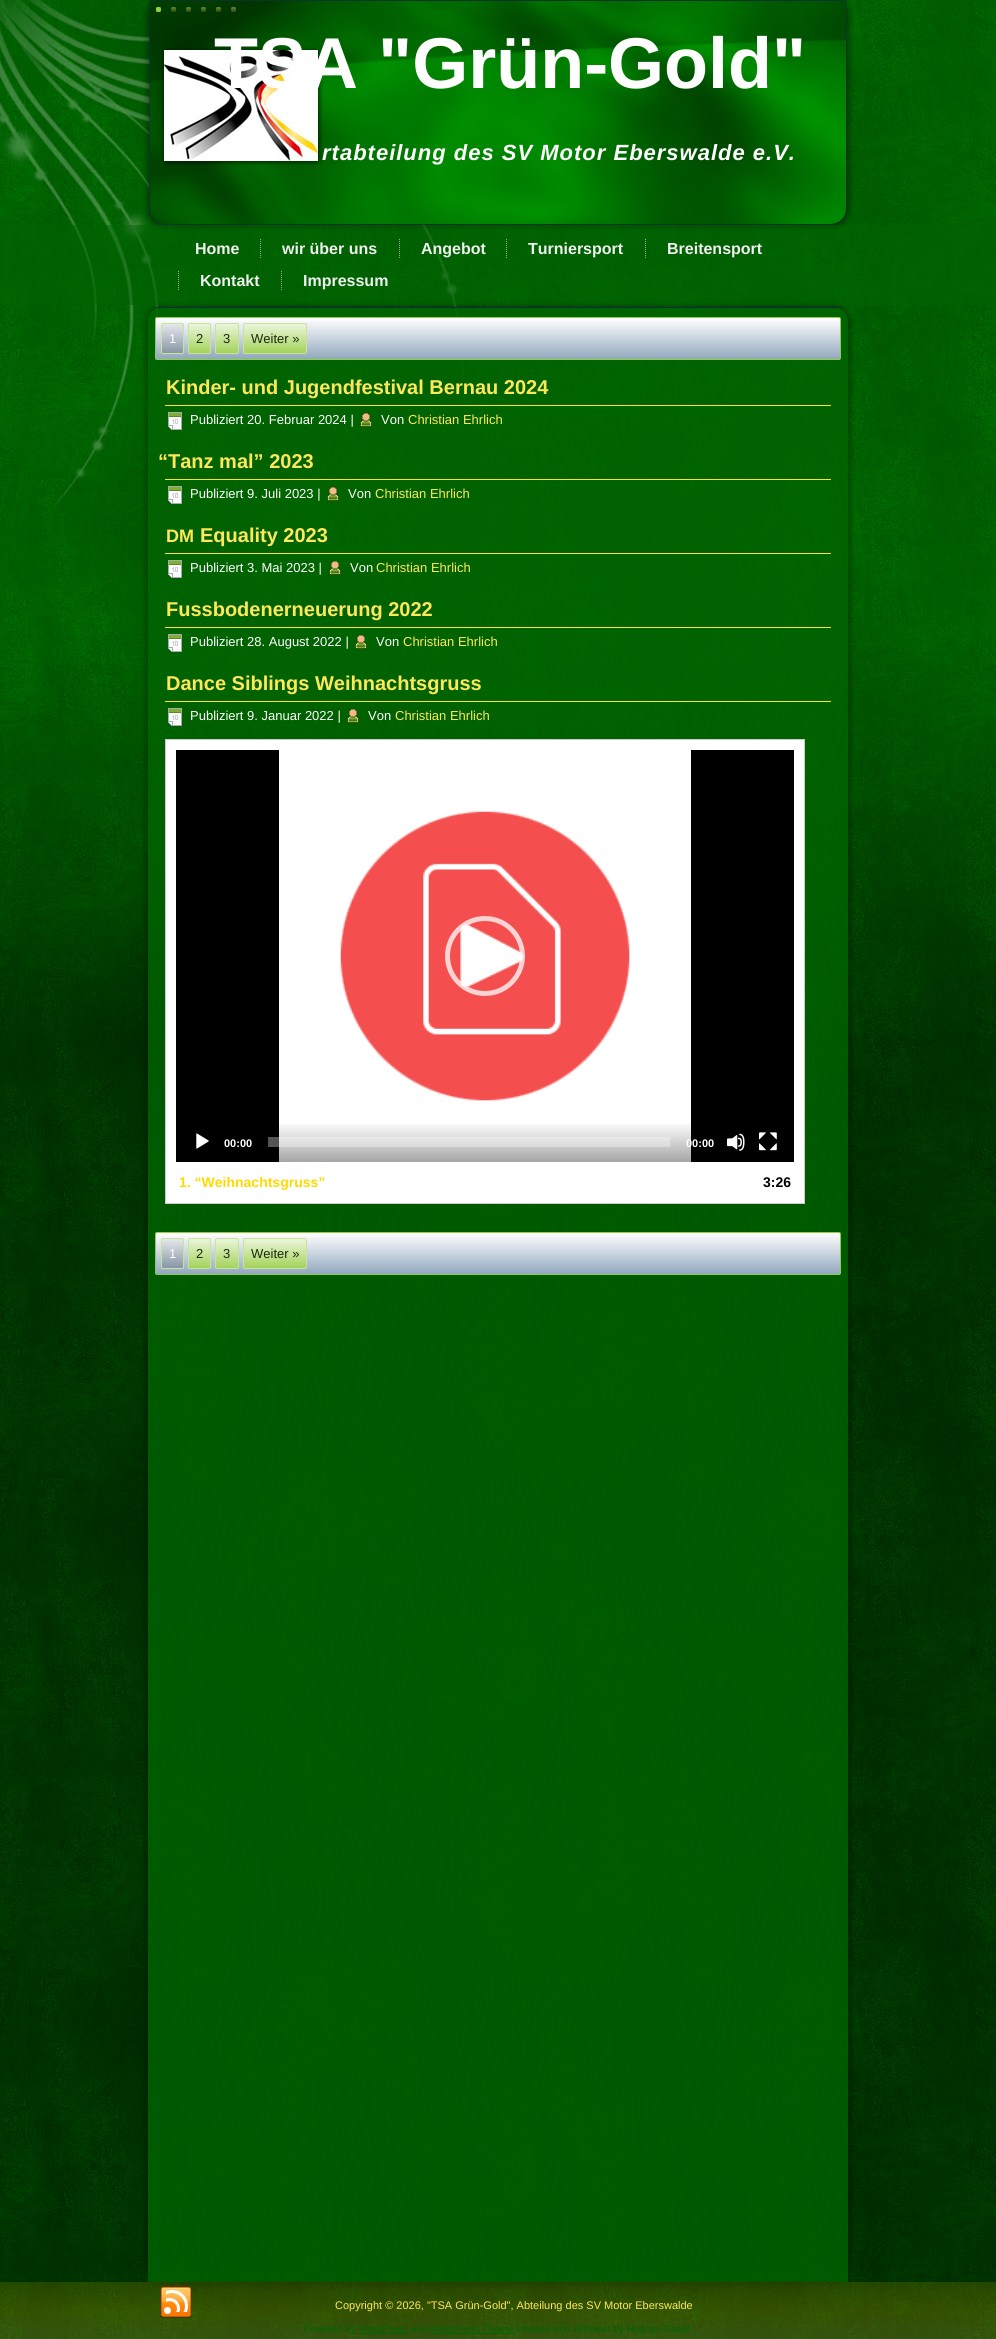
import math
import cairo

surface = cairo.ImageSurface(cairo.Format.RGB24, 996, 2339)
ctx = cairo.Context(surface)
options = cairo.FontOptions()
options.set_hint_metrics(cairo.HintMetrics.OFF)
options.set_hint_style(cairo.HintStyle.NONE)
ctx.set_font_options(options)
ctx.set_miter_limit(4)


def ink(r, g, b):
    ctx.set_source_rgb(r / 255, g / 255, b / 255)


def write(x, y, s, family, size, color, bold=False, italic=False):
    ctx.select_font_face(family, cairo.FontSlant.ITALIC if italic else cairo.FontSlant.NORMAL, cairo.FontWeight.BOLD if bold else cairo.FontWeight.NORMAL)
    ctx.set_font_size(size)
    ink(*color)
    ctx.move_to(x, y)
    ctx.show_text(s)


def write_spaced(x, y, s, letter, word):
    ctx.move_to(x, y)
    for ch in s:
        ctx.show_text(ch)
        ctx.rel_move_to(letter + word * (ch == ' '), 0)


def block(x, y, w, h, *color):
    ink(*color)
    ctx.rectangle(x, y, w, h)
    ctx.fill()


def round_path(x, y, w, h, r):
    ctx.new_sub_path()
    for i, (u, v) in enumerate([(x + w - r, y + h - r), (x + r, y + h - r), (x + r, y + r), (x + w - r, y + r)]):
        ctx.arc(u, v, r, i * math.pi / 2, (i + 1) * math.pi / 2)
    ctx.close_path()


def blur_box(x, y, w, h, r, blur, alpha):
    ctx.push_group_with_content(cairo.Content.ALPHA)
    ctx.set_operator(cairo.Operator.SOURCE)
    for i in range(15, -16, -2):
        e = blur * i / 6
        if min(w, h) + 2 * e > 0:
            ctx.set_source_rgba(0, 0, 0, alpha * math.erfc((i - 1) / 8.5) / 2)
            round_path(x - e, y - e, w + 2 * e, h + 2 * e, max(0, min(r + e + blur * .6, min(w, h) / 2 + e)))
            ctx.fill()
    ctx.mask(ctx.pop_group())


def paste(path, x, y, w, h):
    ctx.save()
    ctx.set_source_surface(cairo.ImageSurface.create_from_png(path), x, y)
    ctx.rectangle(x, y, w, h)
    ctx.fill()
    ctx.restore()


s1 = dict(family="Liberation Sans", size=72, color=(255, 255, 255), bold=True)
s2 = dict(family="Liberation Sans", size=16, color=(240, 240, 240), bold=True)
s3 = dict(family="Liberation Sans", size=13, color=(255, 255, 255))
s4 = dict(family="Liberation Sans", size=13, color=(28, 40, 11))
s5 = dict(family="Liberation Sans", size=20, color=(255, 231, 92), bold=True)
s6 = dict(family="Liberation Sans", size=13, color=(255, 231, 92))
s7 = dict(family="Liberation Sans", size=18, color=(255, 231, 92), bold=True)
s8 = dict(family="Liberation Sans", size=11, color=(255, 255, 255), bold=True)
s9 = dict(family="Liberation Sans", size=14, color=(255, 217, 0), bold=True)
s10 = dict(family="Liberation Sans", size=14, color=(0, 0, 0), bold=True)
s11 = dict(family="Liberation Sans", size=11, color=(255, 231, 92))
s12 = dict(family="Liberation Sans", size=10, color=(0, 100, 0))

ink(255, 255, 255)
ctx.paint()
paste("pic1.png", 0, 0, 996, 2339)
ink(0, 0, 0)
blur_box(146, -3, 704, 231, 18, 2.5, 0.3)
ctx.new_path()
ctx.move_to(149.5, 0.5)
ctx.line_to(846.5, 0.5)
ctx.line_to(846.5, 210)
ctx.curve_to(846.5, 218, 840, 224.5, 832, 224.5)
ctx.line_to(164, 224.5)
ctx.curve_to(156, 224.5, 149.5, 218, 149.5, 210)
ctx.close_path()
ctx.set_source_rgba(0.086, 0.153, 0.275, 0.6)
ctx.set_line_width(1)
ctx.stroke()
paste("pic2.png", 150, 1, 696, 223)
paste("pic3.png", 161, 47, 162, 119)
ink(149, 205, 66)
round_path(156, 7, 5, 5, 1.5)
ctx.fill()
gradient = cairo.LinearGradient(174, 7, 174, 12)
gradient.add_color_stop_rgba(0, 0.38, 0.537, 0.141, 1)
gradient.add_color_stop_rgba(1, 0.2, 0.286, 0.075, 1)
ctx.set_source(gradient)
round_path(171, 7, 5, 5, 1.5)
ctx.fill()
gradient = cairo.LinearGradient(189, 7, 189, 12)
gradient.add_color_stop_rgba(0, 0.38, 0.537, 0.141, 1)
gradient.add_color_stop_rgba(1, 0.2, 0.286, 0.075, 1)
ctx.set_source(gradient)
round_path(186, 7, 5, 5, 1.5)
ctx.fill()
gradient = cairo.LinearGradient(204, 7, 204, 12)
gradient.add_color_stop_rgba(0, 0.38, 0.537, 0.141, 1)
gradient.add_color_stop_rgba(1, 0.2, 0.286, 0.075, 1)
ctx.set_source(gradient)
round_path(201, 7, 5, 5, 1.5)
ctx.fill()
gradient = cairo.LinearGradient(219, 7, 219, 12)
gradient.add_color_stop_rgba(0, 0.38, 0.537, 0.141, 1)
gradient.add_color_stop_rgba(1, 0.2, 0.286, 0.075, 1)
ctx.set_source(gradient)
round_path(216, 7, 5, 5, 1.5)
ctx.fill()
gradient = cairo.LinearGradient(234, 7, 234, 12)
gradient.add_color_stop_rgba(0, 0.38, 0.537, 0.141, 1)
gradient.add_color_stop_rgba(1, 0.2, 0.286, 0.075, 1)
ctx.set_source(gradient)
round_path(231, 7, 5, 5, 1.5)
ctx.fill()
write(214, 88, "TSA \"Grün-Gold\"", **s1)
ctx.select_font_face("Liberation Sans", cairo.FontSlant.ITALIC, cairo.FontWeight.BOLD)
ctx.set_font_size(22)
write_spaced(322, 160, "rtabteilung des SV Motor Eberswalde e.V.", 1, 0)
ctx.save()
ctx.set_fill_rule(cairo.FillRule.EVEN_ODD)
ctx.new_path()
ctx.move_to(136, 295)
ctx.line_to(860, 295)
ctx.line_to(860, 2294)
ctx.line_to(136, 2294)
ctx.close_path()
ctx.move_to(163, 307)
ctx.line_to(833, 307)
ctx.curve_to(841.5, 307, 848, 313.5, 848, 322)
ctx.line_to(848, 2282)
ctx.line_to(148, 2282)
ctx.line_to(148, 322)
ctx.curve_to(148, 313.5, 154.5, 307, 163, 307)
ctx.close_path()
ctx.clip()
ink(0, 0, 0)
blur_box(145, 304, 706, 1981, 18, 2.5, 0.24)
ctx.restore()
ctx.set_source_rgba(0, 0.392, 0, 0.5)
ctx.rectangle(0, 225, 996, 80)
ctx.fill()
write(195, 254, "Home", **s2)
paste("pic4.png", 260, 239, 1, 19)
write(282, 254, "wir über uns", **s2)
paste("pic5.png", 399, 239, 1, 19)
write(421, 254, "Angebot", **s2)
paste("pic6.png", 506, 239, 1, 19)
write(528, 254, "Turniersport", **s2)
paste("pic7.png", 645, 239, 1, 19)
write(667, 254, "Breitensport", **s2)
paste("pic8.png", 178, 271, 1, 19)
write(200, 286, "Kontakt", **s2)
paste("pic9.png", 281, 271, 1, 19)
write(303, 286, "Impressum", **s2)
ctx.set_source_rgba(0, 0.392, 0, 0.8)
ctx.new_path()
ctx.move_to(163, 307)
ctx.line_to(833, 307)
ctx.curve_to(841.5, 307, 848, 313.5, 848, 322)
ctx.line_to(848, 2282)
ctx.line_to(148, 2282)
ctx.line_to(148, 322)
ctx.curve_to(148, 313.5, 154.5, 307, 163, 307)
ctx.close_path()
ctx.fill()
block(156, 307, 685, 1, 22, 39, 70)
gradient = cairo.LinearGradient(498, 318, 498, 359)
gradient.add_color_stop_rgba(0, 1, 1, 1, 1)
gradient.add_color_stop_rgba(1, 0.576, 0.659, 0.745, 1)
ctx.set_source(gradient)
ctx.rectangle(156, 318, 684, 41)
ctx.fill()
round_path(155.5, 317.5, 685, 42, 1.5)
ink(149, 205, 66)
ctx.stroke()
gradient = cairo.LinearGradient(173, 324, 173, 353)
gradient.add_color_stop_rgba(0, 0.898, 0.91, 0.922, 1)
gradient.add_color_stop_rgba(1, 0.529, 0.588, 0.651, 1)
ctx.set_source(gradient)
ctx.rectangle(162, 324, 21, 29)
ctx.fill()
round_path(161.5, 323.5, 22, 30, 1.5)
ink(199, 228, 154)
ctx.stroke()
write(169, 343, "1", **s3)
gradient = cairo.LinearGradient(200, 324, 200, 353)
gradient.add_color_stop_rgba(0, 0.922, 0.961, 0.859, 1)
gradient.add_color_stop_rgba(1, 0.639, 0.827, 0.353, 1)
ctx.set_source(gradient)
ctx.rectangle(189, 324, 21, 29)
ctx.fill()
round_path(188.5, 323.5, 22, 30, 1.5)
ink(199, 228, 154)
ctx.stroke()
write(196, 343, "2", **s4)
gradient = cairo.LinearGradient(227, 324, 227, 353)
gradient.add_color_stop_rgba(0, 0.922, 0.961, 0.859, 1)
gradient.add_color_stop_rgba(1, 0.639, 0.827, 0.353, 1)
ctx.set_source(gradient)
ctx.rectangle(216, 324, 22, 29)
ctx.fill()
round_path(215.5, 323.5, 23, 30, 1.5)
ink(199, 228, 154)
ctx.stroke()
write(223, 343, "3", **s4)
gradient = cairo.LinearGradient(275, 324, 275, 353)
gradient.add_color_stop_rgba(0, 0.922, 0.961, 0.859, 1)
gradient.add_color_stop_rgba(1, 0.639, 0.827, 0.353, 1)
ctx.set_source(gradient)
ctx.rectangle(244, 324, 62, 29)
ctx.fill()
round_path(243.5, 323.5, 63, 30, 1.5)
ink(199, 228, 154)
ctx.stroke()
write(251, 343, "Weiter »", **s4)
block(165, 405, 666, 1, 255, 226, 41)
write(166, 394, "Kinder- und Jugendfestival Bernau 2024", **s5)
paste("pic10.png", 168, 412, 14, 18)
write(190, 424, "Publiziert 20. Februar 2024 |", **s3)
paste("pic11.png", 360, 413, 12, 15)
write(381, 424, "Von", **s3)
write(408, 424, "Christian Ehrlich", **s6)
block(165, 479, 666, 1, 255, 226, 41)
write(158, 468, "“Tanz mal” 2023", **s5)
paste("pic12.png", 168, 486, 14, 18)
write(190, 498, "Publiziert 9. Juli 2023 |", **s3)
paste("pic13.png", 327, 487, 12, 15)
write(348, 498, "Von", **s3)
write(375, 498, "Christian Ehrlich", **s6)
block(165, 553, 666, 1, 255, 226, 41)
write(166, 542, "DM", **s7)
write(200, 542, "Equality 2023", **s5)
paste("pic14.png", 168, 560, 14, 18)
write(190, 572, "Publiziert 3. Mai 2023 |", **s3)
paste("pic15.png", 329, 561, 12, 15)
write(350, 572, "Von", **s3)
write(376, 572, "Christian Ehrlich", **s6)
block(165, 627, 666, 1, 255, 226, 41)
write(166, 616, "Fussbodenerneuerung 2022", **s5)
paste("pic10.png", 168, 634, 14, 18)
write(190, 646, "Publiziert 28. August 2022 |", **s3)
paste("pic16.png", 355, 635, 12, 15)
write(376, 646, "Von", **s3)
write(403, 646, "Christian Ehrlich", **s6)
ctx.set_source_rgba(0, 0.392, 0, 0.7)
ctx.rectangle(184, 684, 645, 17)
ctx.fill()
block(165, 701, 666, 1, 255, 226, 41)
write(166, 690, "Dance Siblings Weihnachtsgruss", **s5)
paste("pic17.png", 168, 708, 14, 18)
write(190, 720, "Publiziert 9. Januar 2022 |", **s3)
paste("pic18.png", 347, 709, 12, 15)
write(368, 720, "Von", **s3)
write(395, 720, "Christian Ehrlich", **s6)
ink(255, 255, 255)
ctx.rectangle(165.5, 739.5, 639, 464)
ctx.fill_preserve()
ink(204, 204, 204)
ctx.stroke()
block(176, 750, 618, 412, 0, 0, 0)
paste("pic19.png", 279, 750, 412, 412)
paste("pic20.png", 445, 916, 80, 80)
gradient = cairo.LinearGradient(485, 1122, 485, 1162)
gradient.add_color_stop_rgba(0, 0, 0, 0, 0)
gradient.add_color_stop_rgba(1, 0, 0, 0, 0.35)
ctx.set_source(gradient)
ctx.rectangle(279, 1124, 412, 38)
ctx.fill()
paste("pic21.png", 196, 1133, 13, 16)
write(224, 1147, "00:00", **s8)
ctx.set_source_rgba(1, 1, 1, 0.33)
ctx.rectangle(268, 1137, 402, 10)
ctx.fill()
write(686, 1147, "00:00", **s8)
paste("pic22.png", 727, 1133, 18, 18)
paste("pic23.png", 759, 1132, 18, 19)
write(179, 1187, "1. “Weihnachtsgruss”", **s9)
write(763, 1187, "3:26", **s10)
gradient = cairo.LinearGradient(498, 1233, 498, 1274)
gradient.add_color_stop_rgba(0, 1, 1, 1, 1)
gradient.add_color_stop_rgba(1, 0.576, 0.659, 0.745, 1)
ctx.set_source(gradient)
ctx.rectangle(156, 1233, 684, 41)
ctx.fill()
round_path(155.5, 1232.5, 685, 42, 1.5)
ink(149, 205, 66)
ctx.stroke()
gradient = cairo.LinearGradient(173, 1239, 173, 1268)
gradient.add_color_stop_rgba(0, 0.898, 0.91, 0.922, 1)
gradient.add_color_stop_rgba(1, 0.529, 0.588, 0.651, 1)
ctx.set_source(gradient)
ctx.rectangle(162, 1239, 21, 29)
ctx.fill()
round_path(161.5, 1238.5, 22, 30, 1.5)
ink(199, 228, 154)
ctx.stroke()
write(169, 1258, "1", **s3)
gradient = cairo.LinearGradient(200, 1239, 200, 1268)
gradient.add_color_stop_rgba(0, 0.922, 0.961, 0.859, 1)
gradient.add_color_stop_rgba(1, 0.639, 0.827, 0.353, 1)
ctx.set_source(gradient)
ctx.rectangle(189, 1239, 21, 29)
ctx.fill()
round_path(188.5, 1238.5, 22, 30, 1.5)
ink(199, 228, 154)
ctx.stroke()
write(196, 1258, "2", **s4)
gradient = cairo.LinearGradient(227, 1239, 227, 1268)
gradient.add_color_stop_rgba(0, 0.922, 0.961, 0.859, 1)
gradient.add_color_stop_rgba(1, 0.639, 0.827, 0.353, 1)
ctx.set_source(gradient)
ctx.rectangle(216, 1239, 22, 29)
ctx.fill()
round_path(215.5, 1238.5, 23, 30, 1.5)
ink(199, 228, 154)
ctx.stroke()
write(223, 1258, "3", **s4)
gradient = cairo.LinearGradient(275, 1239, 275, 1268)
gradient.add_color_stop_rgba(0, 0.922, 0.961, 0.859, 1)
gradient.add_color_stop_rgba(1, 0.639, 0.827, 0.353, 1)
ctx.set_source(gradient)
ctx.rectangle(244, 1239, 62, 29)
ctx.fill()
round_path(243.5, 1238.5, 63, 30, 1.5)
ink(199, 228, 154)
ctx.stroke()
write(251, 1258, "Weiter »", **s4)
gradient = cairo.LinearGradient(498, 2282, 498, 2339)
gradient.add_color_stop_rgba(0, 0.698, 0.596, 0, 0.2)
gradient.add_color_stop_rgba(0.5, 1, 0.851, 0, 0.2)
gradient.add_color_stop_rgba(1, 1, 0.894, 0.298, 0.2)
ctx.set_source(gradient)
ctx.rectangle(0, 2282, 996, 57)
ctx.fill()
paste("pic24.png", 160, 2287, 32, 31)
write(335, 2309, "Copyright © 2026, \"TSA Grün-Gold\", Abteilung des SV Motor Eberswalde", **s11)
write(303, 2332, "Powered by WordPress and WordPress Theme created with Artisteer by Rodrigo Giese.", **s12)
block(359, 2333, 49, 1, 0, 100, 0)
block(430, 2333, 84, 1, 0, 100, 0)
surface.write_to_png("screenshot.png")
